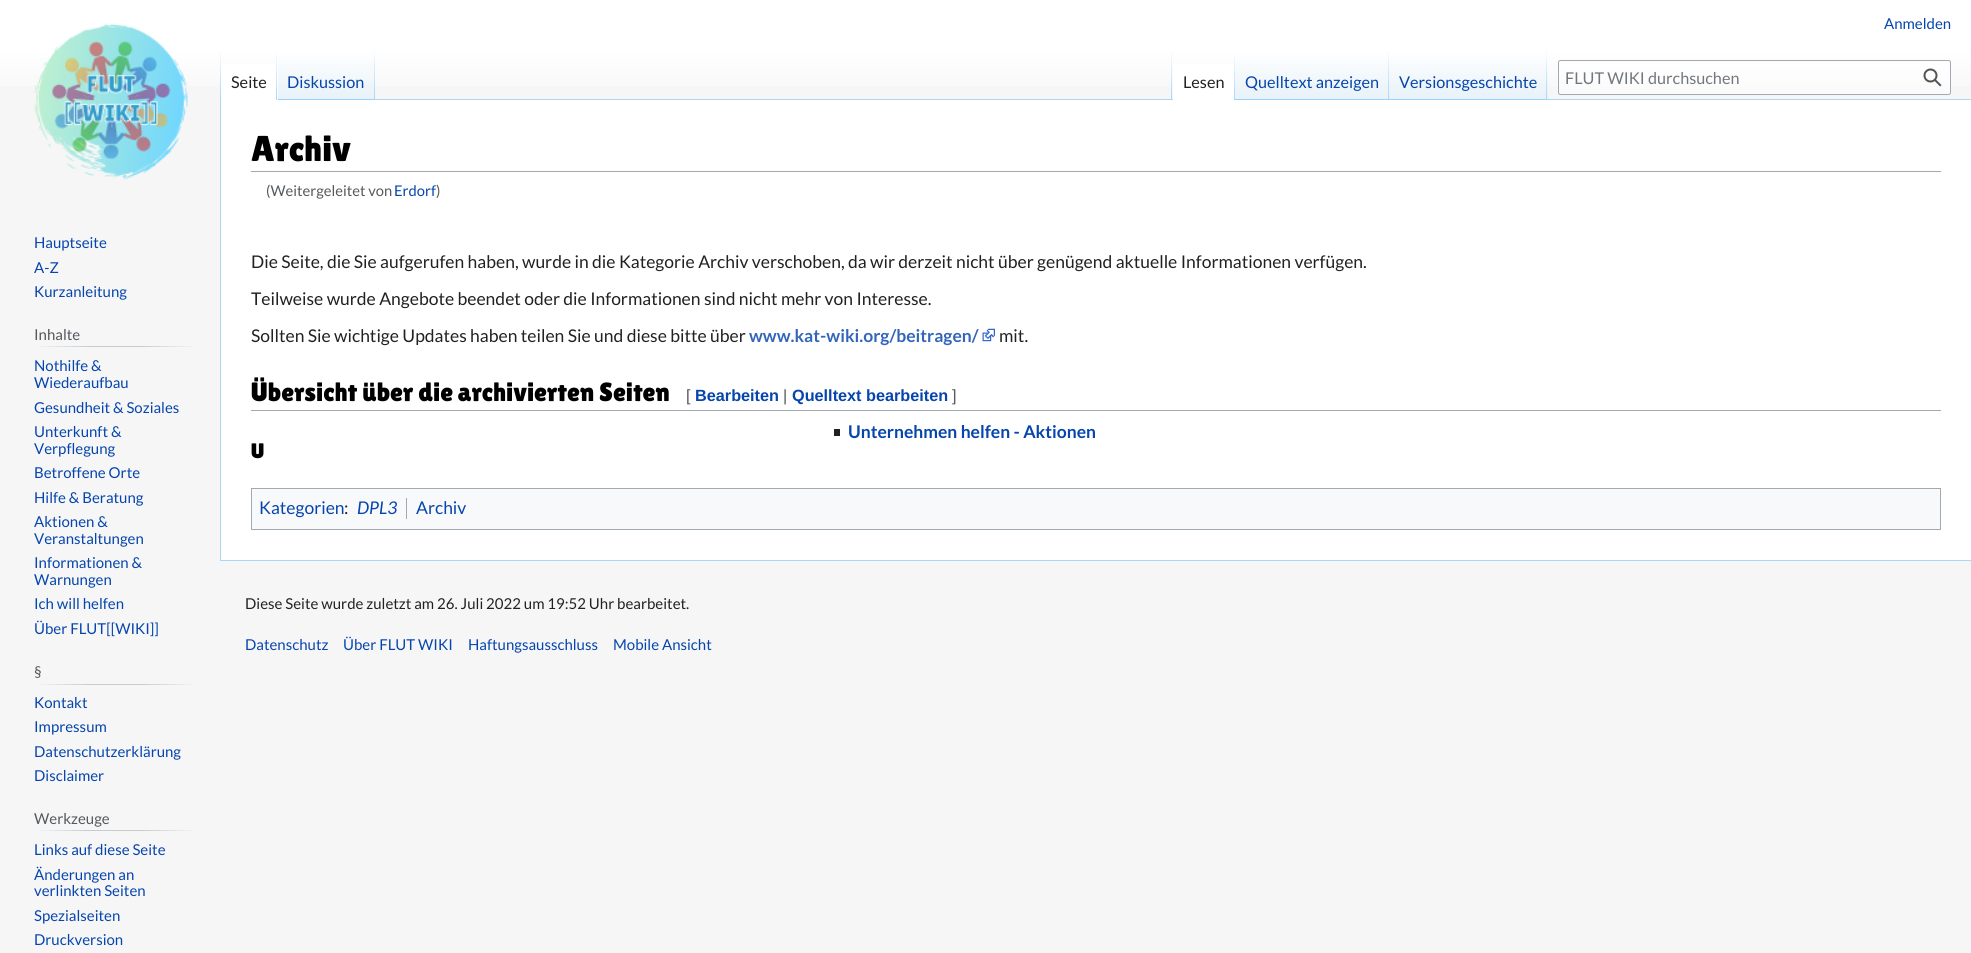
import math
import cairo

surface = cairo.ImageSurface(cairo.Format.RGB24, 1971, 953)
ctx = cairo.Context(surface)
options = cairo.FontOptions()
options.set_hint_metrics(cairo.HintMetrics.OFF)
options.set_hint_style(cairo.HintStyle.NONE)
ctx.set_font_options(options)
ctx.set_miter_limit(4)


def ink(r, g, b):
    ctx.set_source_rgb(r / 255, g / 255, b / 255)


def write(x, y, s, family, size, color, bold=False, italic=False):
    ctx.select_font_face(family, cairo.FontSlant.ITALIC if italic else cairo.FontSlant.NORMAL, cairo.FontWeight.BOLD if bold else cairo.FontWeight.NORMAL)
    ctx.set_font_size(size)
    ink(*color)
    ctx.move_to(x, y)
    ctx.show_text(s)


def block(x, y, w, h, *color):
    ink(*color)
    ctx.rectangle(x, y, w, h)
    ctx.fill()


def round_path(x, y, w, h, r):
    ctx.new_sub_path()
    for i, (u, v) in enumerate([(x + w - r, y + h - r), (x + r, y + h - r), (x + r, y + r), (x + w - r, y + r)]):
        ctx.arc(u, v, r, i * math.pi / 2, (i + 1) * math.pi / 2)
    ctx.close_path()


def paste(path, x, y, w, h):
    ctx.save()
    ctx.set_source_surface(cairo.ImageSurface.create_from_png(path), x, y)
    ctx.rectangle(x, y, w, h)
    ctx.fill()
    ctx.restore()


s1 = dict(family="Lato", size=15, color=(6, 69, 173))
s2 = dict(family="Lato", size=16.25, color=(32, 33, 34))
s3 = dict(family="Lato", size=16.25, color=(6, 69, 173))
s4 = dict(family="Lato", size=16.25, color=(114, 119, 125))
s5 = dict(family="Lato", size=15, color=(84, 89, 93))
s6 = dict(family="Lilita One", size=36, color=(0, 0, 0))
s7 = dict(family="Lato", size=14.75, color=(84, 89, 93))
s8 = dict(family="Lato", size=14.75, color=(6, 69, 173))
s9 = dict(family="Lato", size=17.5, color=(32, 33, 34))
s10 = dict(family="Lato", size=17.5, color=(51, 102, 187), bold=True)
s11 = dict(family="Lilita One", size=26.25, color=(0, 0, 0))
s12 = dict(family="Liberation Sans", size=16.25, color=(84, 89, 93))
s13 = dict(family="Liberation Sans", size=16.25, color=(6, 69, 173), bold=True)
s14 = dict(family="Lato", size=17.5, color=(6, 69, 173), bold=True)
s15 = dict(family="Lilita One", size=21, color=(0, 0, 0))
s16 = dict(family="Lato", size=17.5, color=(6, 69, 173))
s17 = dict(family="Lato", size=17.5, color=(6, 69, 173), italic=True)
s18 = dict(family="Lato", size=15, color=(32, 33, 34))

ink(246, 246, 246)
ctx.paint()
gradient = cairo.LinearGradient(986, 0, 986, 100)
gradient.add_color_stop_rgba(0.5, 1, 1, 1, 1)
gradient.add_color_stop_rgba(1, 0.965, 0.965, 0.965, 1)
ctx.set_source(gradient)
ctx.rectangle(0, 0, 1971, 86)
ctx.fill()
write(1884, 29, "Anmelden", **s1)
block(220, 560, 1751, 1, 167, 215, 249)
block(220, 99, 1, 462, 167, 215, 249)
gradient = cairo.LinearGradient(221, 50, 221, 100)
gradient.add_color_stop_rgba(0, 0.655, 0.843, 0.976, 0)
gradient.add_color_stop_rgba(1, 0.655, 0.843, 0.976, 1)
ctx.set_source(gradient)
ctx.rectangle(220, 50, 1, 50)
ctx.fill()
block(221, 64, 57, 36, 255, 255, 255)
gradient = cairo.LinearGradient(277, 50, 277, 100)
gradient.add_color_stop_rgba(0, 1, 1, 1, 1)
gradient.add_color_stop_rgba(1, 0.655, 0.843, 0.976, 1)
ctx.set_source(gradient)
ctx.rectangle(276, 50, 1, 50)
ctx.fill()
write(231, 88, "Seite", **s2)
gradient = cairo.LinearGradient(326, 100, 326, 50)
gradient.add_color_stop_rgba(0, 0.467, 0.757, 0.965, 1)
gradient.add_color_stop_rgba(0.03, 0.91, 0.949, 0.973, 1)
gradient.add_color_stop_rgba(1, 1, 1, 1, 1)
ctx.set_source(gradient)
ctx.rectangle(278, 57, 97, 43)
ctx.fill()
gradient = cairo.LinearGradient(374, 50, 374, 100)
gradient.add_color_stop_rgba(0, 0.655, 0.843, 0.976, 0)
gradient.add_color_stop_rgba(1, 0.655, 0.843, 0.976, 1)
ctx.set_source(gradient)
ctx.rectangle(374, 50, 1, 50)
ctx.fill()
write(287, 88, "Diskussion", **s3)
block(375, 99, 1596, 1, 167, 215, 249)
gradient = cairo.LinearGradient(1172, 50, 1172, 100)
gradient.add_color_stop_rgba(0, 0.655, 0.843, 0.976, 0)
gradient.add_color_stop_rgba(1, 0.655, 0.843, 0.976, 1)
ctx.set_source(gradient)
ctx.rectangle(1171, 50, 1, 50)
ctx.fill()
block(1173, 64, 61, 36, 255, 255, 255)
gradient = cairo.LinearGradient(1234, 50, 1234, 100)
gradient.add_color_stop_rgba(0, 1, 1, 1, 1)
gradient.add_color_stop_rgba(1, 0.655, 0.843, 0.976, 1)
ctx.set_source(gradient)
ctx.rectangle(1234, 50, 1, 50)
ctx.fill()
write(1183, 88, "Lesen", **s2)
gradient = cairo.LinearGradient(1312, 100, 1312, 50)
gradient.add_color_stop_rgba(0, 0.467, 0.757, 0.965, 1)
gradient.add_color_stop_rgba(0.03, 0.91, 0.949, 0.973, 1)
gradient.add_color_stop_rgba(1, 1, 1, 1, 1)
ctx.set_source(gradient)
ctx.rectangle(1235, 57, 154, 43)
ctx.fill()
gradient = cairo.LinearGradient(1388, 50, 1388, 100)
gradient.add_color_stop_rgba(0, 0.655, 0.843, 0.976, 0)
gradient.add_color_stop_rgba(1, 0.655, 0.843, 0.976, 1)
ctx.set_source(gradient)
ctx.rectangle(1388, 50, 1, 50)
ctx.fill()
write(1245, 88, "Quelltext anzeigen", **s3)
gradient = cairo.LinearGradient(1468, 100, 1468, 50)
gradient.add_color_stop_rgba(0, 0.467, 0.757, 0.965, 1)
gradient.add_color_stop_rgba(0.03, 0.91, 0.949, 0.973, 1)
gradient.add_color_stop_rgba(1, 1, 1, 1, 1)
ctx.set_source(gradient)
ctx.rectangle(1389, 57, 159, 43)
ctx.fill()
gradient = cairo.LinearGradient(1547, 50, 1547, 100)
gradient.add_color_stop_rgba(0, 0.655, 0.843, 0.976, 0)
gradient.add_color_stop_rgba(1, 0.655, 0.843, 0.976, 1)
ctx.set_source(gradient)
ctx.rectangle(1546, 50, 1, 50)
ctx.fill()
write(1399, 88, "Versionsgeschichte", **s3)
ctx.set_source_rgba(1, 1, 1, 0.5)
round_path(1558.5, 60.5, 392, 34, 2)
ctx.fill_preserve()
ink(162, 169, 177)
ctx.set_line_width(1)
ctx.stroke()
write(1565, 84, "FLUT WIKI durchsuchen", **s4)
paste("pic1.png", 1923, 68, 19, 19)
paste("pic2.png", 33, 23, 155, 157)
write(34, 248, "Hauptseite", **s1)
write(34, 273, "A-Z", **s1)
write(34, 297, "Kurzanleitung", **s1)
gradient = cairo.LinearGradient(34, 347, 198, 347)
gradient.add_color_stop_rgba(0, 0.965, 0.965, 0.965, 1)
gradient.add_color_stop_rgba(0.33, 0.784, 0.8, 0.82, 1)
gradient.add_color_stop_rgba(0.66, 0.784, 0.8, 0.82, 1)
gradient.add_color_stop_rgba(1, 0.965, 0.965, 0.965, 1)
ctx.set_source(gradient)
ctx.rectangle(34, 346, 164, 1)
ctx.fill()
write(34, 340, "Inhalte", **s5)
write(34, 371, "Nothilfe &", **s1)
write(34, 388, "Wiederaufbau", **s1)
write(34, 413, "Gesundheit & Soziales", **s1)
write(34, 437, "Unterkunft &", **s1)
write(34, 454, "Verpflegung", **s1)
write(34, 478, "Betroffene Orte", **s1)
write(34, 503, "Hilfe & Beratung", **s1)
write(34, 527, "Aktionen &", **s1)
write(34, 544, "Veranstaltungen", **s1)
write(34, 568, "Informationen &", **s1)
write(34, 585, "Warnungen", **s1)
write(34, 609, "Ich will helfen", **s1)
write(34, 634, "Über FLUT[[WIKI]]", **s1)
gradient = cairo.LinearGradient(34, 684, 198, 684)
gradient.add_color_stop_rgba(0, 0.965, 0.965, 0.965, 1)
gradient.add_color_stop_rgba(0.33, 0.784, 0.8, 0.82, 1)
gradient.add_color_stop_rgba(0.66, 0.784, 0.8, 0.82, 1)
gradient.add_color_stop_rgba(1, 0.965, 0.965, 0.965, 1)
ctx.set_source(gradient)
ctx.rectangle(34, 684, 164, 1)
ctx.fill()
write(34, 677, "§", **s5)
write(34, 708, "Kontakt", **s1)
write(34, 732, "Impressum", **s1)
write(34, 757, "Datenschutzerklärung", **s1)
write(34, 781, "Disclaimer", **s1)
gradient = cairo.LinearGradient(34, 831, 198, 831)
gradient.add_color_stop_rgba(0, 0.965, 0.965, 0.965, 1)
gradient.add_color_stop_rgba(0.33, 0.784, 0.8, 0.82, 1)
gradient.add_color_stop_rgba(0.66, 0.784, 0.8, 0.82, 1)
gradient.add_color_stop_rgba(1, 0.965, 0.965, 0.965, 1)
ctx.set_source(gradient)
ctx.rectangle(34, 830, 164, 1)
ctx.fill()
write(34, 824, "Werkzeuge", **s5)
write(34, 855, "Links auf diese Seite", **s1)
write(34, 880, "Änderungen an", **s1)
write(34, 896, "verlinkten Seiten", **s1)
write(34, 921, "Spezialseiten", **s1)
write(34, 945, "Druckversion", **s1)
block(221, 100, 1750, 460, 255, 255, 255)
block(251, 171, 1690, 1, 162, 169, 177)
write(251, 161, "Archiv", **s6)
write(266, 196, "(Weitergeleitet von", **s7)
write(394, 196, "Erdorf", **s8)
write(436, 196, ")", **s7)
write(251, 268, "Die Seite, die Sie aufgerufen haben, wurde in die Kategorie Archiv verschoben, da wir derzeit nicht über genügend aktuelle Informationen verfügen.", **s9)
write(251, 305, "Teilweise wurde Angebote beendet oder die Informationen sind nicht mehr von Interesse.", **s9)
write(251, 342, "Sollten Sie wichtige Updates haben teilen Sie und diese bitte über", **s9)
write(749, 342, "www.kat-wiki.org/beitragen/", **s10)
paste("pic3.png", 982, 328, 13, 14)
write(999, 342, "mit.", **s9)
block(251, 410, 1690, 1, 162, 169, 177)
write(251, 401, "Übersicht über die archivierten Seiten", **s11)
write(686, 401, "[", **s12)
write(695, 401, "Bearbeiten", **s13)
write(783, 401, "|", **s12)
write(792, 401, "Quelltext bearbeiten", **s13)
write(952, 401, "]", **s12)
block(834, 429, 6, 7, 32, 33, 34)
write(848, 438, "Unternehmen helfen - Aktionen", **s14)
write(251, 458, "U", **s15)
ink(248, 249, 250)
ctx.rectangle(251.5, 488.5, 1689, 41)
ctx.fill_preserve()
ink(162, 169, 177)
ctx.stroke()
write(259, 514, "Kategorien", **s16)
write(344, 514, ":", **s9)
write(357, 514, "DPL3", **s17)
block(406, 498, 1, 21, 162, 169, 177)
write(416, 514, "Archiv", **s16)
write(245, 609, "Diese Seite wurde zuletzt am 26. Juli 2022 um 19:52 Uhr bearbeitet.", **s18)
write(245, 650, "Datenschutz", **s1)
write(343, 650, "Über FLUT WIKI", **s1)
write(468, 650, "Haftungsausschluss", **s1)
write(613, 650, "Mobile Ansicht", **s1)
surface.write_to_png("screenshot.png")
